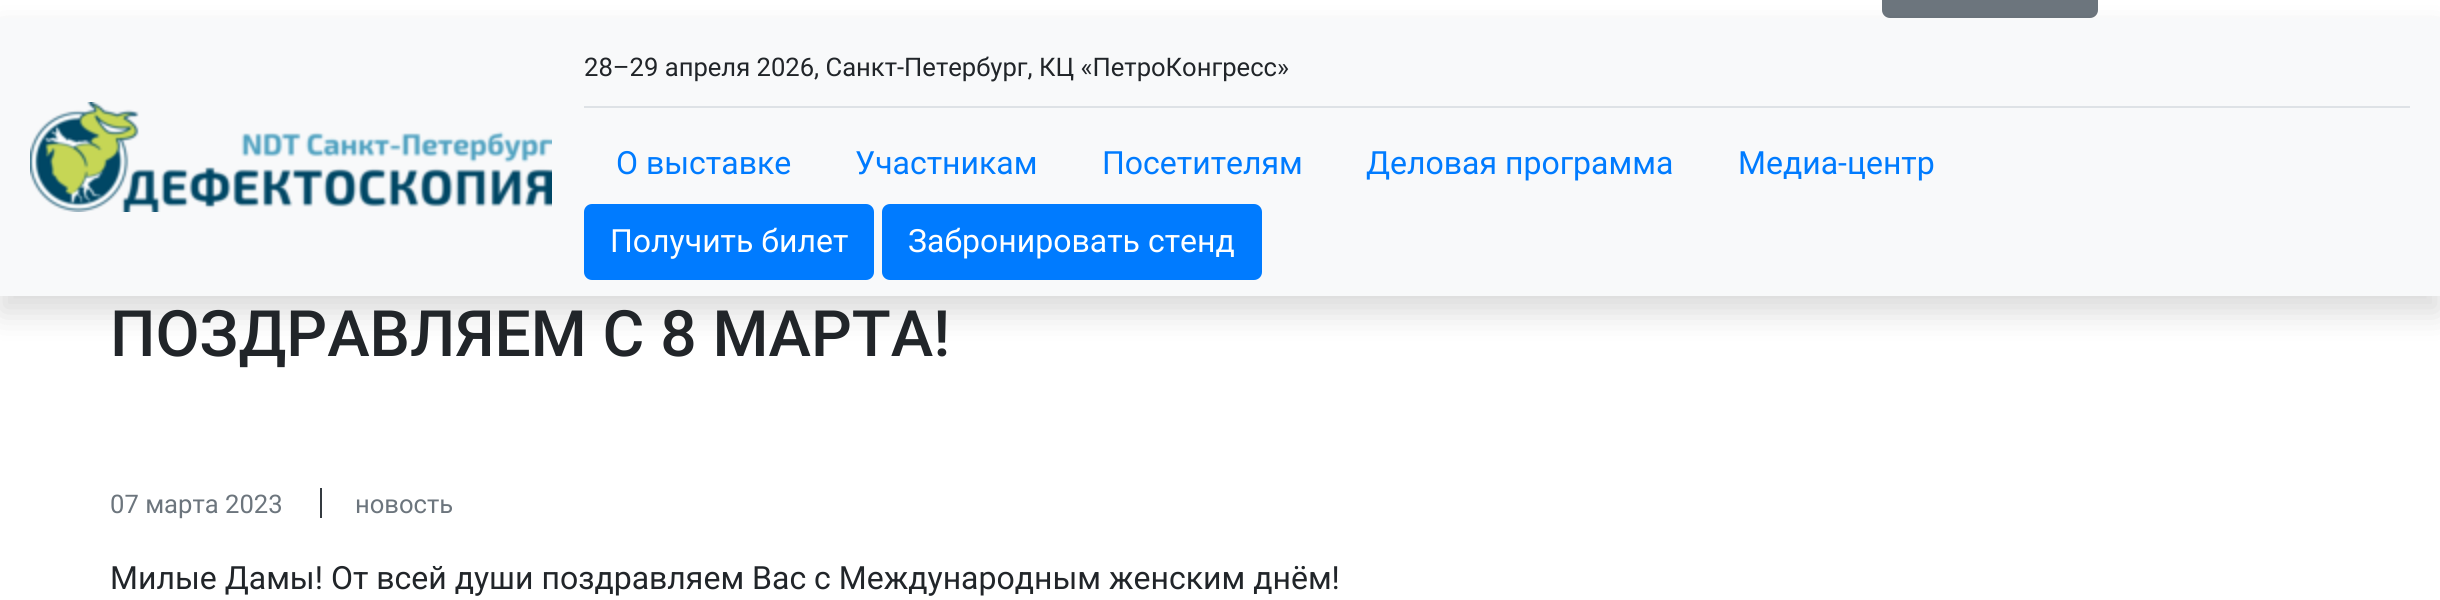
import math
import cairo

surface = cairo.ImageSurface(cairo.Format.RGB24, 2440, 600)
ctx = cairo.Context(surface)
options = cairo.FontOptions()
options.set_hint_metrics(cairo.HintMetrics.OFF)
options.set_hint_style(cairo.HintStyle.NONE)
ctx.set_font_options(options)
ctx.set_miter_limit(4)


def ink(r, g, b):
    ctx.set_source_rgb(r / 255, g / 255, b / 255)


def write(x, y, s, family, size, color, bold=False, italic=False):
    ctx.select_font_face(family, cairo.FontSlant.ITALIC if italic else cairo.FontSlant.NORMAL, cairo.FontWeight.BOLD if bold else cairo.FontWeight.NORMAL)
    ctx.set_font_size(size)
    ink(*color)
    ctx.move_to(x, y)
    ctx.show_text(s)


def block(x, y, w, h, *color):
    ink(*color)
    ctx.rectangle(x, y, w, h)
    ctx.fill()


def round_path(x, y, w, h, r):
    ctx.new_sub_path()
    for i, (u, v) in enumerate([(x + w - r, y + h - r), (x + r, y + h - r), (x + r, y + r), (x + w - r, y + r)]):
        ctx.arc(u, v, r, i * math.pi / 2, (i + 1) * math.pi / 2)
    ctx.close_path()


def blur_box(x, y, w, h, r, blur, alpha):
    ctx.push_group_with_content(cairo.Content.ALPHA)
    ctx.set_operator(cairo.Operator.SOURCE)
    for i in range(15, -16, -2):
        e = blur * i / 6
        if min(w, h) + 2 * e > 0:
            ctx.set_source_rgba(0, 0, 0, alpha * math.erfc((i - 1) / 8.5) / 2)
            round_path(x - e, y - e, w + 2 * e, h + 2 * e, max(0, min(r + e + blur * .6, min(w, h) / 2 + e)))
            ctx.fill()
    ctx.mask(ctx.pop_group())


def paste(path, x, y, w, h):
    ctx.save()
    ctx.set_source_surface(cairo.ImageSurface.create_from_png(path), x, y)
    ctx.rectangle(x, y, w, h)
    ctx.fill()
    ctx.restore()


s1 = dict(family="Roboto", size=25.6, color=(33, 37, 41))
s2 = dict(family="Roboto", size=32, color=(0, 123, 255))
s3 = dict(family="Roboto", size=32, color=(255, 255, 255))
s4 = dict(family="Roboto Medium", size=64, color=(33, 37, 41))
s5 = dict(family="Roboto", size=25.6, color=(108, 117, 125))
s6 = dict(family="Roboto", size=32, color=(33, 37, 41))

ink(255, 255, 255)
ctx.paint()
ink(108, 117, 125)
round_path(1883, -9, 214, 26, 7)
ctx.fill_preserve()
ctx.stroke()
ink(0, 0, 0)
blur_box(0, 34, 2440, 278, 0, 16, 0.15)
block(0, 18, 2440, 278, 248, 249, 250)
paste("pic1.png", 30, 102, 522, 110)
block(584, 106, 1826, 2, 222, 226, 230)
write(584, 76, "28–29 апреля 2026, Санкт-Петербург, КЦ «ПетроКонгресс»", **s1)
write(616, 174, "О выставке", **s2)
write(855, 174, "Участникам", **s2)
write(1102, 174, "Посетителям", **s2)
write(1366, 174, "Деловая программа", **s2)
write(1738, 174, "Медиа-центр", **s2)
round_path(585, 205, 288, 74, 7)
ctx.fill_preserve()
ctx.stroke()
write(610, 252, "Получить билет", **s3)
ink(0, 123, 255)
round_path(883, 205, 378, 74, 7)
ctx.fill_preserve()
ctx.stroke()
write(908, 252, "Забронировать стенд", **s3)
write(110, 356, "ПОЗДРАВЛЯЕМ С 8 МАРТА!", **s4)
write(110, 513, "07 марта 2023", **s5)
write(355, 513, "новость", **s5)
block(320, 488, 2, 30, 52, 58, 64)
write(110, 589, "Милые Дамы! От всей души поздравляем Вас с Международным женским днём!", **s6)
surface.write_to_png("screenshot.png")
